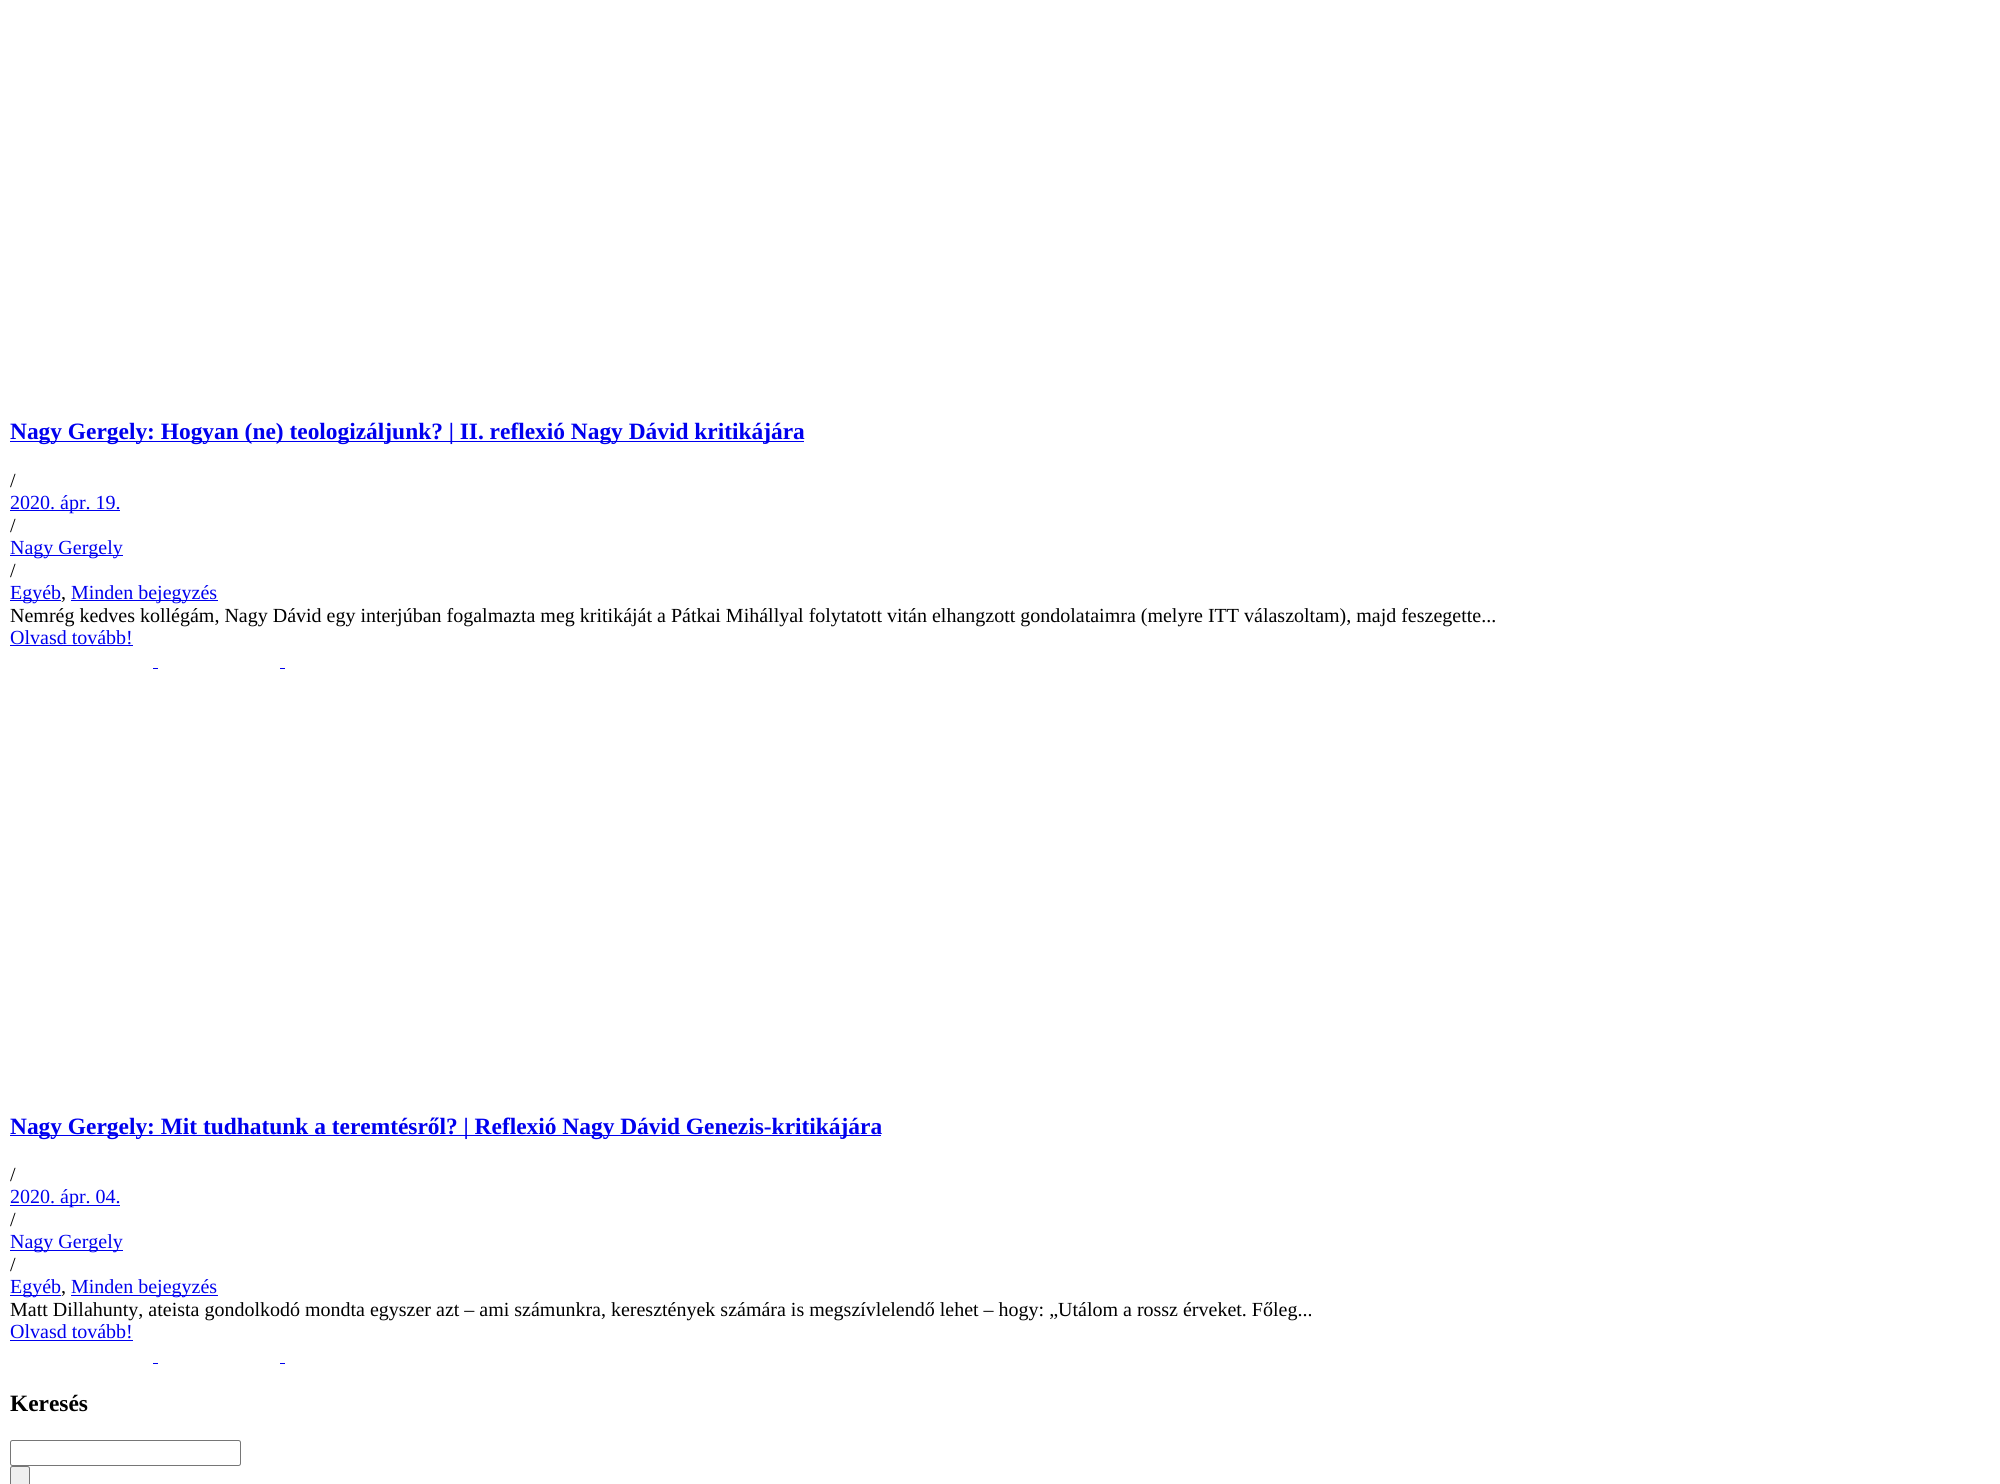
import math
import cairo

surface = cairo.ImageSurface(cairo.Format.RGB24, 2000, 1484)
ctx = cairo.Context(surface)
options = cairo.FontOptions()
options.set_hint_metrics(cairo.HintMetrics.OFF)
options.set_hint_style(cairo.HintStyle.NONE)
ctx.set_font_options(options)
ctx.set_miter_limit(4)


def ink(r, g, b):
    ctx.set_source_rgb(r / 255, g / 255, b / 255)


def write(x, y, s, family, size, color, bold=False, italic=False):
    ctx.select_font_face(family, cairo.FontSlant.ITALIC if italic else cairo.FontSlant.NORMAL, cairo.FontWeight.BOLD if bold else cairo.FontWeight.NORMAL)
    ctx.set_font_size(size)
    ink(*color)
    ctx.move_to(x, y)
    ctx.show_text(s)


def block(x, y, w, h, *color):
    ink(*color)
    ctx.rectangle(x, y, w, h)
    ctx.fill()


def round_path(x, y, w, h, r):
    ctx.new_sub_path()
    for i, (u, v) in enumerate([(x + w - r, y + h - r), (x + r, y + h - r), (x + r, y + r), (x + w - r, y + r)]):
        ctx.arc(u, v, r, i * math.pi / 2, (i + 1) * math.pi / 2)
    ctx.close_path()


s1 = dict(family="Liberation Serif", size=23.4, color=(0, 0, 238), bold=True)
s2 = dict(family="Liberation Serif", size=20, color=(0, 0, 0))
s3 = dict(family="Liberation Serif", size=20, color=(0, 0, 238))
s4 = dict(family="Liberation Serif", size=23.4, color=(0, 0, 0), bold=True)

ink(255, 255, 255)
ctx.paint()
block(10, 441, 794, 1, 0, 0, 238)
write(10, 439, "Nagy Gergely: Hogyan (ne) teologizáljunk? | II. reflexió Nagy Dávid kritikájára", **s1)
write(10, 487, "/", **s2)
block(10, 510, 110, 1, 0, 0, 238)
write(10, 509, "2020. ápr. 19.", **s3)
write(10, 532, "/", **s2)
block(10, 555, 113, 1, 0, 0, 238)
write(10, 554, "Nagy Gergely", **s3)
write(10, 577, "/", **s2)
block(10, 600, 51, 1, 0, 0, 238)
write(10, 599, "Egyéb", **s3)
write(61, 599, ",", **s2)
block(71, 600, 147, 1, 0, 0, 238)
write(71, 599, "Minden bejegyzés", **s3)
write(10, 622, "Nemrég kedves kollégám, Nagy Dávid egy interjúban fogalmazta meg kritikáját a Pátkai Mihállyal folytatott vitán elhangzott gondolataimra (melyre ITT válaszoltam), majd feszegette...", **s2)
write(10, 644, "Olvasd tovább!", **s3)
block(10, 645, 123, 1, 0, 0, 238)
block(153, 668, 5, 1, 0, 0, 238)
block(280, 668, 5, 1, 0, 0, 238)
block(10, 1135, 871, 1, 0, 0, 238)
write(10, 1134, "Nagy Gergely: Mit tudhatunk a teremtésről? | Reflexió Nagy Dávid Genezis-kritikájára", **s1)
write(10, 1181, "/", **s2)
block(10, 1205, 110, 1, 0, 0, 238)
write(10, 1203, "2020. ápr. 04.", **s3)
write(10, 1226, "/", **s2)
block(10, 1250, 113, 1, 0, 0, 238)
write(10, 1248, "Nagy Gergely", **s3)
write(10, 1271, "/", **s2)
block(10, 1295, 51, 1, 0, 0, 238)
write(10, 1293, "Egyéb", **s3)
write(61, 1293, ",", **s2)
block(71, 1295, 147, 1, 0, 0, 238)
write(71, 1293, "Minden bejegyzés", **s3)
write(10, 1316, "Matt Dillahunty, ateista gondolkodó mondta egyszer azt – ami számunkra, keresztények számára is megszívlelendő lehet – hogy: „Utálom a rossz érveket. Főleg...", **s2)
write(10, 1338, "Olvasd tovább!", **s3)
block(10, 1340, 123, 1, 0, 0, 238)
block(153, 1363, 5, 1, 0, 0, 238)
block(280, 1363, 5, 1, 0, 0, 238)
write(10, 1411, "Keresés", **s4)
round_path(10.5, 1440.5, 230, 25, 2)
ink(118, 118, 118)
ctx.set_line_width(1)
ctx.stroke()
ink(239, 239, 239)
round_path(10.5, 1466.5, 19, 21, 2)
ctx.fill_preserve()
ink(118, 118, 118)
ctx.stroke()
surface.write_to_png("screenshot.png")
